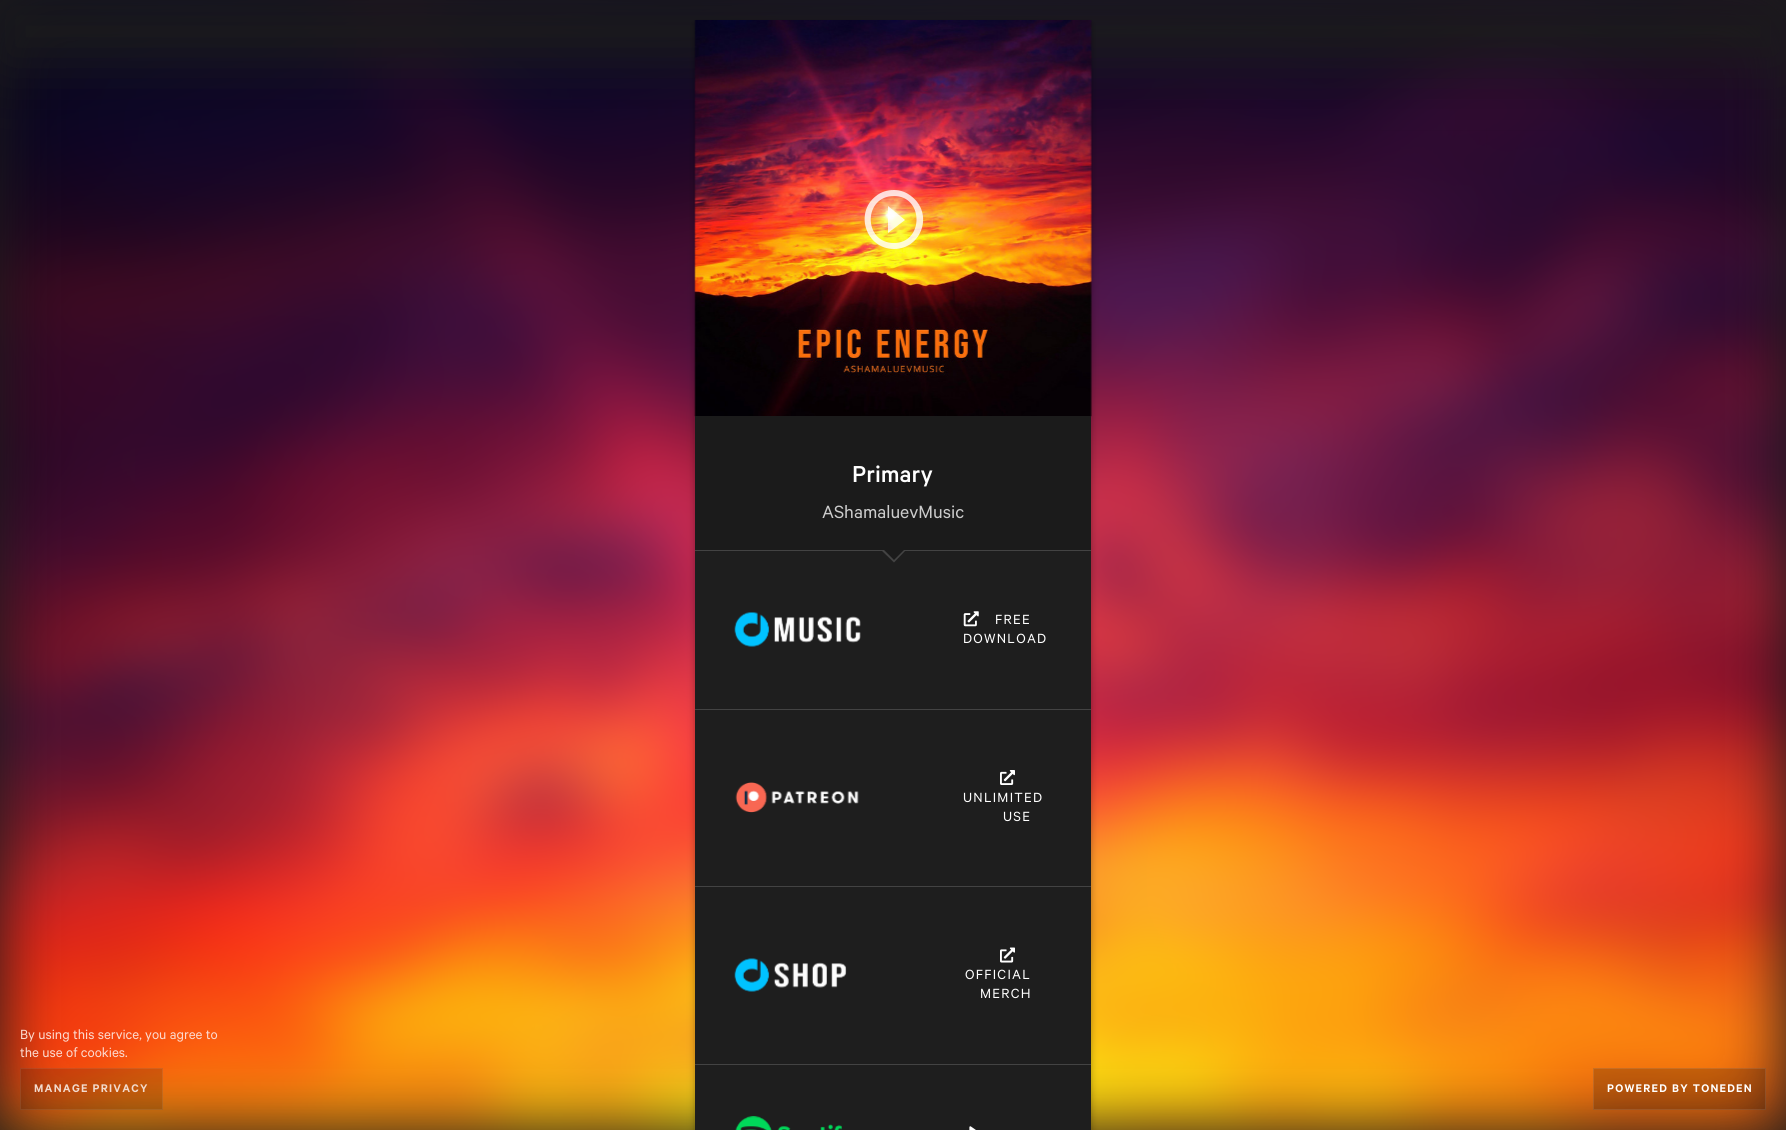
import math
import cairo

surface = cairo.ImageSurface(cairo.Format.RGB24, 1786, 1130)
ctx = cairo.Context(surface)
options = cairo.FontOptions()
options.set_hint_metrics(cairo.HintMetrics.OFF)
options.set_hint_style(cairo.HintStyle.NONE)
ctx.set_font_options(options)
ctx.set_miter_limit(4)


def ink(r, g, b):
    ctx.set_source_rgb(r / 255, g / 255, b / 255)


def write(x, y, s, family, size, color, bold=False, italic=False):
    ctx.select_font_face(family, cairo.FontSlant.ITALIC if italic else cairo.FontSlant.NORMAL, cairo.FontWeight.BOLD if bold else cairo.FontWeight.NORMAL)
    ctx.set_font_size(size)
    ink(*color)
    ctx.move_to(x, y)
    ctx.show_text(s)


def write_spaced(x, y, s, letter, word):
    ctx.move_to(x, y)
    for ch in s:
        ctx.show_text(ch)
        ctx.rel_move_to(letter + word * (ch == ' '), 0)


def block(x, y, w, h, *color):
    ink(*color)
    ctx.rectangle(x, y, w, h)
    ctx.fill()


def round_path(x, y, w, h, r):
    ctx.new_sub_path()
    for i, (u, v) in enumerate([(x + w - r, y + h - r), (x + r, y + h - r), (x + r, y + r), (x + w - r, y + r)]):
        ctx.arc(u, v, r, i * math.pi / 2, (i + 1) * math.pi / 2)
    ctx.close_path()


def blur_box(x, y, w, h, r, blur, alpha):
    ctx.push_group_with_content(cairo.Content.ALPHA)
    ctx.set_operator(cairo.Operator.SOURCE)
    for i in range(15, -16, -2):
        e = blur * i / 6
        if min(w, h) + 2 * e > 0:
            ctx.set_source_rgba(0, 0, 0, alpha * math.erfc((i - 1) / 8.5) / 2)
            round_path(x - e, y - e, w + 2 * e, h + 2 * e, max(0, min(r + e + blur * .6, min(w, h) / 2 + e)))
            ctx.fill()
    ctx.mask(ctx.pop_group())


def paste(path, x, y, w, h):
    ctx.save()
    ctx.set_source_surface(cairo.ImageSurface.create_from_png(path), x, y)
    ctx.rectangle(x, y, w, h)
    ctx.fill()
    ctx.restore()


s1 = dict(family="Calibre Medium", size=26, color=(255, 255, 255))
s2 = dict(family="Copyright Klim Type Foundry", size=20, color=(204, 204, 204))
s3 = dict(family="Copyright Klim Type Foundry", size=15, color=(252, 218, 207))

ink(27, 27, 27)
ctx.paint()
paste("pic1.png", 0, 0, 1786, 1130)
blur_box(0, 0, 1786, 63, 0, 31, 1)
ink(0, 0, 0)
blur_box(695, 24, 396, 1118, 0, 4, 0.21)
blur_box(695, 24, 396, 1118, 0, 4, 0.12)
paste("pic2.png", 694, 20, 398, 397)
ctx.set_source_rgba(1, 1, 1, 0.8)
ctx.new_path()
ctx.move_to(888, 233)
ctx.line_to(905, 220)
ctx.line_to(888, 206)
ctx.close_path()
ctx.move_to(894, 190)
ctx.curve_to(887, 190, 881, 192, 876, 196)
ctx.curve_to(854, 213, 866, 249, 894, 249)
ctx.curve_to(922, 249, 934, 213, 911, 196)
ctx.curve_to(906, 192, 900, 190, 894, 190)
ctx.close_path()
ctx.move_to(894, 243)
ctx.curve_to(863, 243, 863, 196, 894, 196)
ctx.curve_to(924, 196, 924, 243, 894, 243)
ctx.close_path()
ctx.fill()
block(695, 416, 396, 134, 27, 27, 27)
write(852, 482, "Primary", **s1)
write(822, 518, "AShamaluevMusic", **s2)
block(695, 551, 396, 579, 30, 30, 30)
block(695, 550, 396, 1, 67, 67, 67)
ctx.new_path()
ctx.move_to(881, 550)
ctx.line_to(906, 550)
ctx.line_to(894, 562.5)
ctx.close_path()
ctx.fill()
ink(27, 27, 27)
ctx.new_path()
ctx.move_to(884, 550)
ctx.line_to(904, 550)
ctx.line_to(894, 560)
ctx.close_path()
ctx.fill()
block(695, 709, 396, 1, 67, 67, 67)
paste("pic3.png", 734, 612, 127, 35)
paste("pic4.png", 963, 611, 16, 16)
ctx.set_font_size(15)
ink(255, 255, 255)
write_spaced(995, 624, "FREE", 1.25, 0)
write_spaced(963, 643, "DOWNLOAD", 1.25, 0)
block(695, 886, 396, 1, 67, 67, 67)
paste("pic5.png", 735, 782, 124, 31)
paste("pic6.png", 1000, 770, 15, 15)
ink(255, 255, 255)
write_spaced(963, 802, "UNLIMITED", 1.25, 0)
write_spaced(1003, 821, "USE", 1.25, 0)
block(695, 1064, 396, 1, 67, 67, 67)
paste("pic7.png", 734, 958, 113, 34)
paste("pic8.png", 1000, 947, 15, 16)
ink(255, 255, 255)
write_spaced(965, 979, "OFFICIAL", 1.25, 0)
write_spaced(980, 998, "MERCH", 1.25, 0)
paste("pic9.png", 735, 1116, 107, 14)
paste("pic10.png", 969, 1126, 7, 4)
write(20, 1039, "By using this service, you agree to", **s3)
write(20, 1057, "the use of cookies.", **s3)
ctx.set_source_rgba(0, 0, 0, 0.16)
ctx.rectangle(20, 1068, 143, 42)
ctx.fill()
ctx.rectangle(20.5, 1068.5, 142, 41)
ctx.set_source_rgba(1, 1, 1, 0.08)
ctx.set_line_width(1)
ctx.stroke()
ctx.select_font_face("Calibre SemiBold")
ctx.set_font_size(12.5)
ink(242, 219, 206)
write_spaced(34, 1092, "MANAGE PRIVACY", 1.25, 0)
ctx.set_source_rgba(0, 0, 0, 0.2)
ctx.rectangle(1593, 1068, 173, 42)
ctx.fill()
ctx.rectangle(1593.5, 1068.5, 172, 41)
ctx.set_source_rgba(1, 1, 1, 0.1)
ctx.stroke()
ink(255, 255, 255)
write_spaced(1607, 1092, "POWERED BY TONEDEN", 1.25, 0)
surface.write_to_png("screenshot.png")
